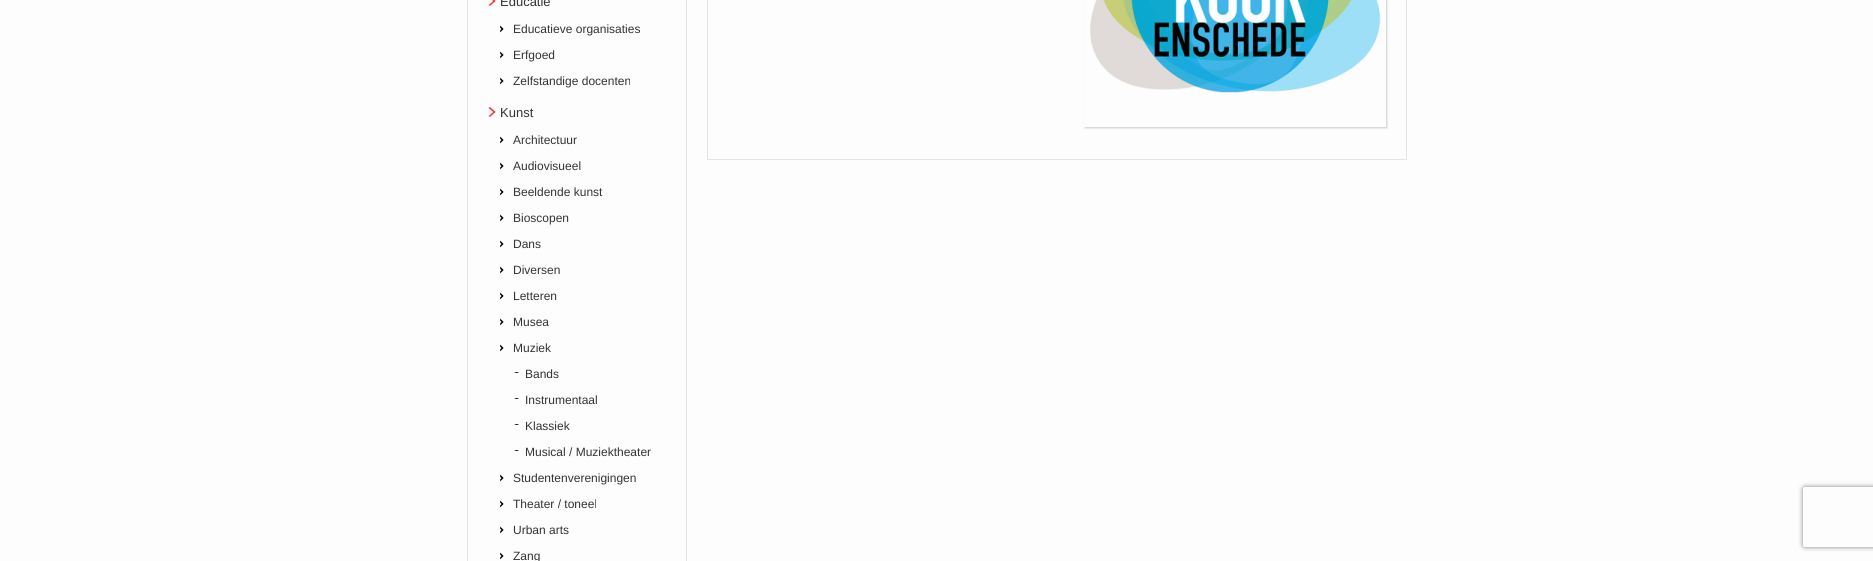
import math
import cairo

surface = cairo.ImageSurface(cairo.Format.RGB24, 1873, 561)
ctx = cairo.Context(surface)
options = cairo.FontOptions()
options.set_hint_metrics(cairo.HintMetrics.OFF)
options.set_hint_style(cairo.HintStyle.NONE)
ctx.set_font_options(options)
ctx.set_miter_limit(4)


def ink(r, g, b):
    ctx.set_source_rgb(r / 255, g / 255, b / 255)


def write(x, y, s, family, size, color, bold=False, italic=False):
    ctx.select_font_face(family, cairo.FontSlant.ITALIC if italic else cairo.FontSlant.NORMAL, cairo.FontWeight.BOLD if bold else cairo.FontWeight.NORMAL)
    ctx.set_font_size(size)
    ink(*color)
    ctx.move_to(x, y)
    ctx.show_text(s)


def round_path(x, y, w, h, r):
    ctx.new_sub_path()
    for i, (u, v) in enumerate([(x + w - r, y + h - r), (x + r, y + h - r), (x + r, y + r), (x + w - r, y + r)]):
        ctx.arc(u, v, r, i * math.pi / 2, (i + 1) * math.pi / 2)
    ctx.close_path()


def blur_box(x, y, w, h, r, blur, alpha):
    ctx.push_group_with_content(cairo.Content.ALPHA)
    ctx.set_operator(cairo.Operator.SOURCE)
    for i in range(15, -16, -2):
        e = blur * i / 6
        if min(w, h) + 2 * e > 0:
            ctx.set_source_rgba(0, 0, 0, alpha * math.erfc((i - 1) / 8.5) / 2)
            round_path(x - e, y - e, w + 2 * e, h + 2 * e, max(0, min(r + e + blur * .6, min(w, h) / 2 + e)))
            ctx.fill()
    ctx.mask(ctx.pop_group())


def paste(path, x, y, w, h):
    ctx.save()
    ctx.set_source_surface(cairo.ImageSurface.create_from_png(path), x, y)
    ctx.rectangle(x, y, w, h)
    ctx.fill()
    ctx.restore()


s1 = dict(family="Liberation Sans", size=13, color=(51, 51, 51))
s2 = dict(family="Liberation Sans", size=12, color=(51, 51, 51))

ink(253, 253, 253)
ctx.paint()
ctx.rectangle(467.5, -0.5, 219, 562)
ink(228, 228, 228)
ctx.set_line_width(1)
ctx.stroke()
paste("pic1.png", 488, 0, 8, 6)
write(500, 6, "Educatie", **s1)
paste("pic2.png", 500, 25, 4, 8)
write(513, 33, "Educatieve organisaties", **s2)
paste("pic2.png", 500, 51, 4, 8)
write(513, 59, "Erfgoed", **s2)
paste("pic2.png", 500, 77, 4, 8)
write(513, 85, "Zelfstandige docenten", **s2)
paste("pic3.png", 488, 107, 8, 10)
write(500, 117, "Kunst", **s1)
paste("pic2.png", 500, 136, 4, 8)
write(513, 144, "Architectuur", **s2)
paste("pic2.png", 500, 162, 4, 8)
write(513, 170, "Audiovisueel", **s2)
paste("pic2.png", 500, 188, 4, 8)
write(513, 196, "Beeldende kunst", **s2)
paste("pic2.png", 500, 214, 4, 8)
write(513, 222, "Bioscopen", **s2)
paste("pic2.png", 500, 240, 4, 8)
write(513, 248, "Dans", **s2)
paste("pic2.png", 500, 266, 4, 8)
write(513, 274, "Diversen", **s2)
paste("pic2.png", 500, 292, 4, 8)
write(513, 300, "Letteren", **s2)
paste("pic2.png", 500, 318, 4, 8)
write(513, 326, "Musea", **s2)
paste("pic2.png", 500, 344, 4, 8)
write(513, 352, "Muziek", **s2)
paste("pic4.png", 514, 372, 5, 1)
write(525, 378, "Bands", **s2)
paste("pic4.png", 514, 398, 5, 1)
write(525, 404, "Instrumentaal", **s2)
paste("pic4.png", 514, 424, 5, 1)
write(525, 430, "Klassiek", **s2)
paste("pic4.png", 514, 450, 5, 1)
write(525, 456, "Musical / Muziektheater", **s2)
paste("pic2.png", 500, 474, 4, 8)
write(513, 482, "Studentenverenigingen", **s2)
paste("pic2.png", 500, 500, 4, 8)
write(513, 508, "Theater / toneel", **s2)
paste("pic2.png", 500, 526, 4, 8)
write(513, 534, "Urban arts", **s2)
paste("pic2.png", 500, 552, 4, 8)
write(513, 560, "Zang", **s2)
ctx.rectangle(707.5, -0.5, 699, 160)
ink(228, 228, 228)
ctx.stroke()
ctx.save()
ctx.set_fill_rule(cairo.FillRule.EVEN_ODD)
ctx.new_path()
ctx.move_to(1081, 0)
ctx.line_to(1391, 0)
ctx.line_to(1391, 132)
ctx.line_to(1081, 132)
ctx.close_path()
ctx.move_to(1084, -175)
ctx.line_to(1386, -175)
ctx.line_to(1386, 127)
ctx.line_to(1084, 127)
ctx.close_path()
ctx.clip()
ink(204, 204, 204)
blur_box(1085, -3, 302, 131, 0, 1, 1)
ctx.restore()
paste("pic5.png", 1090, 0, 291, 93)
ctx.save()
ctx.set_fill_rule(cairo.FillRule.EVEN_ODD)
ctx.new_path()
ctx.move_to(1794, 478)
ctx.line_to(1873, 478)
ctx.line_to(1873, 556)
ctx.line_to(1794, 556)
ctx.close_path()
ctx.move_to(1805, 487)
ctx.line_to(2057, 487)
ctx.curve_to(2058, 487, 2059, 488, 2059, 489)
ctx.line_to(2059, 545)
ctx.curve_to(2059, 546, 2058, 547, 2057, 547)
ctx.line_to(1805, 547)
ctx.curve_to(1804, 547, 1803, 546, 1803, 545)
ctx.line_to(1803, 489)
ctx.curve_to(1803, 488, 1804, 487, 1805, 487)
ctx.close_path()
ctx.clip()
ink(128, 128, 128)
blur_box(1803, 487, 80, 60, 2, 2.5, 1)
ctx.restore()
surface.write_to_png("screenshot.png")
